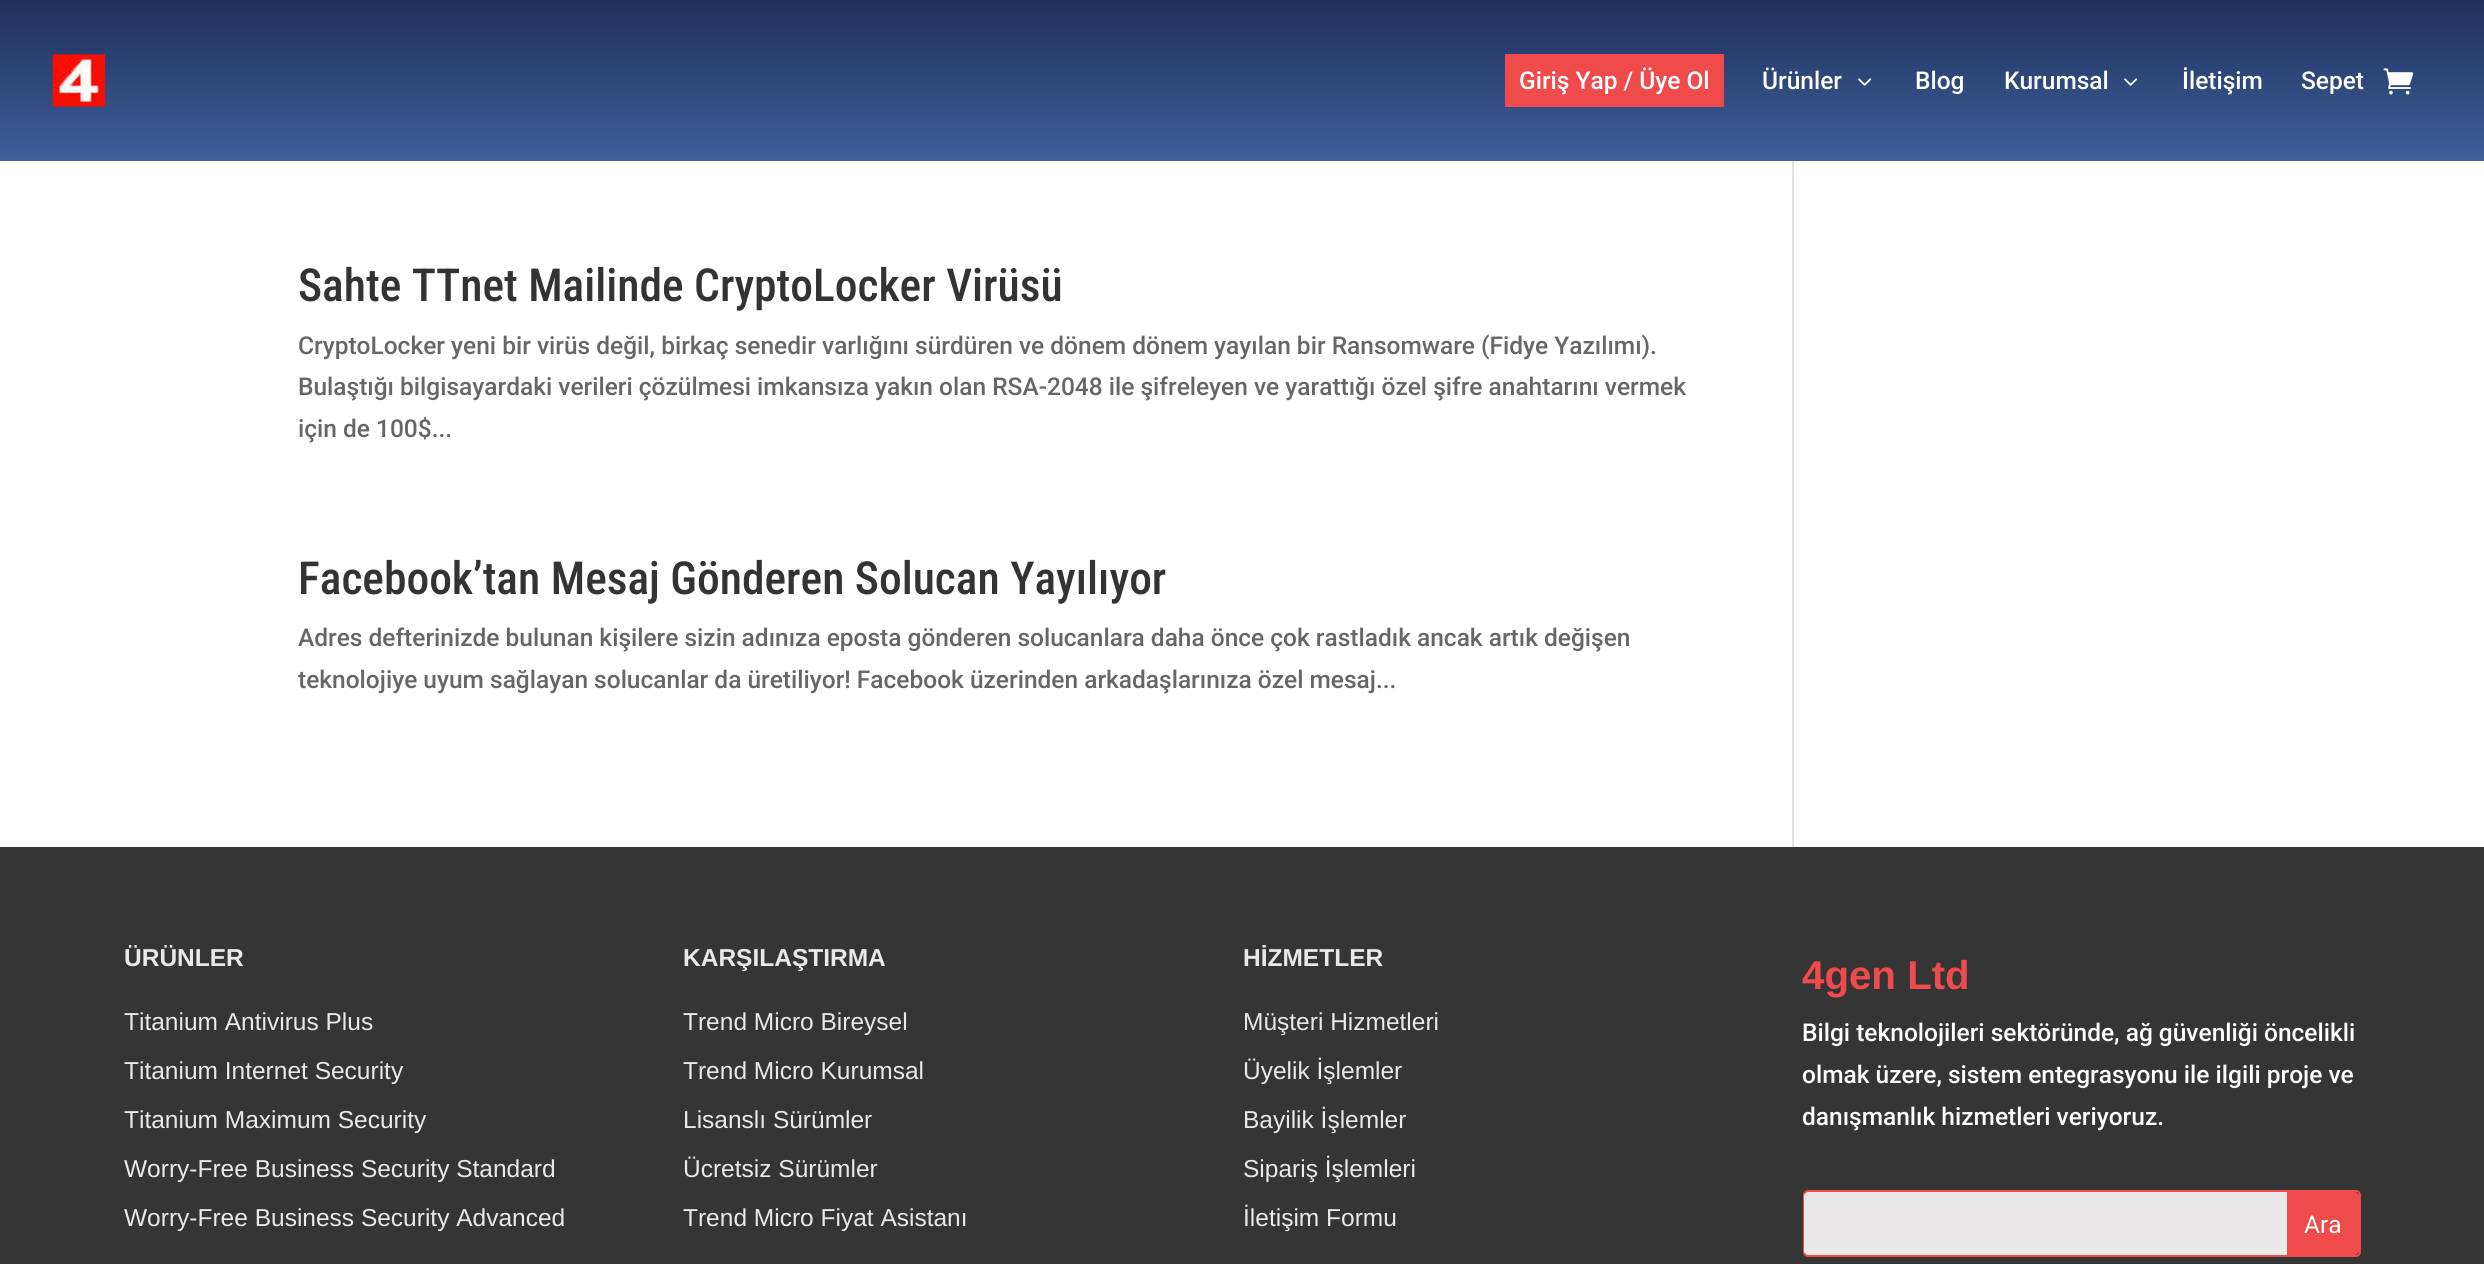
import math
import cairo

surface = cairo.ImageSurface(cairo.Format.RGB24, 2484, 1264)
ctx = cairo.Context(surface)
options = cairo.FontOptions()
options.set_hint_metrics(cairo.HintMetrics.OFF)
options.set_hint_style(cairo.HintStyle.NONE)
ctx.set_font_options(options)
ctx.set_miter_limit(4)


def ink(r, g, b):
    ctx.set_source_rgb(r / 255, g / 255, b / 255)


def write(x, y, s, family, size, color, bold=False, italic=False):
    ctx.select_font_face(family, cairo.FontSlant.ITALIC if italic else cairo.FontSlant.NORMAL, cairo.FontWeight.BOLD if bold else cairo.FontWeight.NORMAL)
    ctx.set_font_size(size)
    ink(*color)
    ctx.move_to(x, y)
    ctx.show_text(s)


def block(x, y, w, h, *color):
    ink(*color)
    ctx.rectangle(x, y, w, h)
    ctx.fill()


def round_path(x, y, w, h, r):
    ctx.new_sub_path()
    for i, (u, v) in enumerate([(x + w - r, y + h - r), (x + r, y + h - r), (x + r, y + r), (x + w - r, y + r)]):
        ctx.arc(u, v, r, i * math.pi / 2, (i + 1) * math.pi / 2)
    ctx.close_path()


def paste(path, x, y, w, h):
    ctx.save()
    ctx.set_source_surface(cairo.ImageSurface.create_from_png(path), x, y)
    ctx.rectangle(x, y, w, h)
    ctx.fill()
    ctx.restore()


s1 = dict(family="Roboto Medium", size=24.5, color=(255, 255, 255))
s2 = dict(family="Roboto Condensed Medium", size=45.5, color=(51, 51, 51))
s3 = dict(family="Roboto Medium", size=24.5, color=(102, 102, 102))
s4 = dict(family="Liberation Sans", size=24.5, color=(234, 232, 233), bold=True)
s5 = dict(family="Liberation Sans", size=24.5, color=(234, 232, 233))
s6 = dict(family="Liberation Sans", size=40.25, color=(239, 75, 77), bold=True)
s7 = dict(family="Roboto", size=24.5, color=(255, 255, 255))

ink(255, 255, 255)
ctx.paint()
gradient = cairo.LinearGradient(1243, 0, 1243, 161)
gradient.add_color_stop_rgba(0, 0.125, 0.188, 0.357, 1)
gradient.add_color_stop_rgba(1, 0.243, 0.373, 0.608, 1)
ctx.set_source(gradient)
ctx.rectangle(0, 0, 2484, 161)
ctx.fill()
paste("pic1.png", 52, 54, 53, 53)
block(1505, 54, 219, 53, 240, 75, 76)
write(1519, 89, "Giriş Yap / Üye Ol", **s1)
write(1762, 89, "Ürünler", **s1)
paste("pic2.png", 1858, 78, 14, 8)
write(1915, 89, "Blog", **s1)
write(2004, 89, "Kurumsal", **s1)
paste("pic2.png", 2124, 78, 14, 8)
write(2182, 89, "İletişim", **s1)
write(2301, 89, "Sepet", **s1)
paste("pic3.png", 2383, 68, 31, 27)
write(298, 301, "Sahte TTnet Mailinde CryptoLocker Virüsü", **s2)
write(298, 354, "CryptoLocker yeni bir virüs değil, birkaç senedir varlığını sürdüren ve dönem dönem yayılan bir Ransomware (Fidye Yazılımı).", **s3)
write(298, 395, "Bulaştığı bilgisayardaki verileri çözülmesi imkansıza yakın olan RSA-2048 ile şifreleyen ve yarattığı özel şifre anahtarını vermek", **s3)
write(298, 437, "için de 100$...", **s3)
write(298, 594, "Facebook’tan Mesaj Gönderen Solucan Yayılıyor", **s2)
write(298, 646, "Adres defterinizde bulunan kişilere sizin adınıza eposta gönderen solucanlara daha önce çok rastladık ancak artık değişen", **s3)
write(298, 688, "teknolojiye uyum sağlayan solucanlar da üretiliyor! Facebook üzerinden arkadaşlarınıza özel mesaj...", **s3)
block(1792, 161, 2, 686, 226, 226, 226)
block(0, 847, 2484, 417, 53, 53, 53)
write(124, 966, "ÜRÜNLER", **s4)
write(124, 1030, "Titanium Antivirus Plus", **s5)
write(124, 1079, "Titanium Internet Security", **s5)
write(124, 1128, "Titanium Maximum Security", **s5)
write(124, 1177, "Worry-Free Business Security Standard", **s5)
write(124, 1226, "Worry-Free Business Security Advanced", **s5)
write(683, 966, "KARŞILAŞTIRMA", **s4)
write(683, 1030, "Trend Micro Bireysel", **s5)
write(683, 1079, "Trend Micro Kurumsal", **s5)
write(683, 1128, "Lisanslı Sürümler", **s5)
write(683, 1177, "Ücretsiz Sürümler", **s5)
write(683, 1226, "Trend Micro Fiyat Asistanı", **s5)
write(1243, 966, "HİZMETLER", **s4)
write(1243, 1030, "Müşteri Hizmetleri", **s5)
write(1243, 1079, "Üyelik İşlemler", **s5)
write(1243, 1128, "Bayilik İşlemler", **s5)
write(1243, 1177, "Sipariş İşlemleri", **s5)
write(1243, 1226, "İletişim Formu", **s5)
write(1802, 989, "4gen Ltd", **s6)
write(1802, 1041, "Bilgi teknolojileri sektöründe, ağ güvenliği öncelikli", **s1)
write(1802, 1083, "olmak üzere, sistem entegrasyonu ile ilgili proje ve", **s1)
write(1802, 1125, "danışmanlık hizmetleri veriyoruz.", **s1)
round_path(1804, 1191, 556, 65, 4)
ink(239, 75, 77)
ctx.stroke()
ink(234, 232, 233)
ctx.new_path()
ctx.move_to(1808, 1192)
ctx.line_to(2287, 1192)
ctx.line_to(2287, 1255)
ctx.line_to(1808, 1255)
ctx.curve_to(1806, 1255, 1804, 1253, 1804, 1251)
ctx.line_to(1804, 1196)
ctx.curve_to(1804, 1194, 1806, 1192, 1808, 1192)
ctx.close_path()
ctx.fill()
ink(239, 75, 77)
ctx.new_path()
ctx.move_to(2287, 1192)
ctx.line_to(2355, 1192)
ctx.curve_to(2357, 1192, 2359, 1194, 2359, 1196)
ctx.line_to(2359, 1251)
ctx.curve_to(2359, 1253, 2357, 1255, 2355, 1255)
ctx.line_to(2287, 1255)
ctx.close_path()
ctx.fill()
write(2304, 1233, "Ara", **s7)
surface.write_to_png("screenshot.png")
